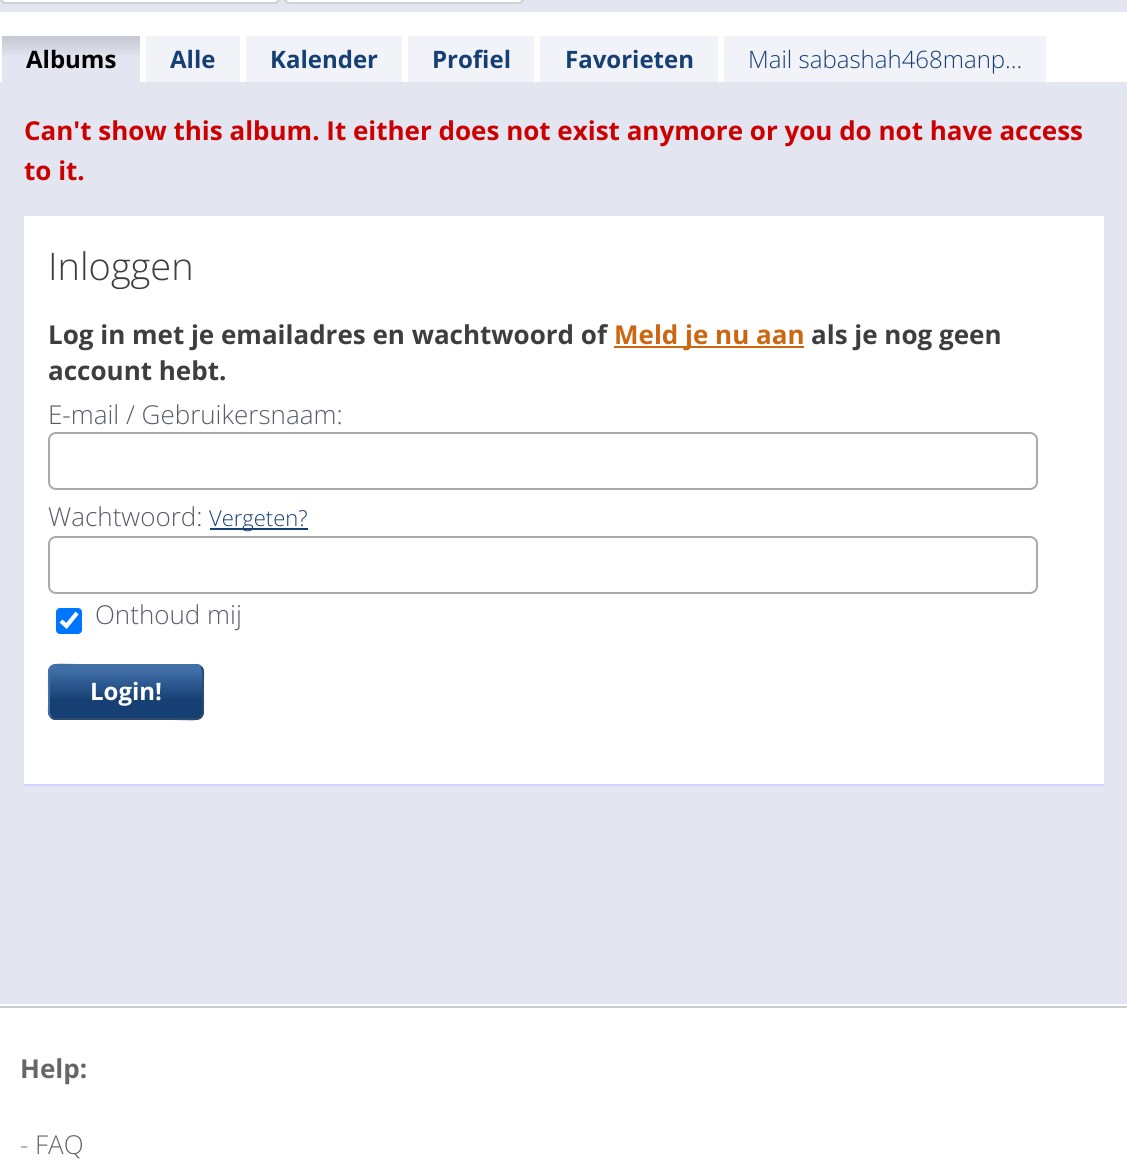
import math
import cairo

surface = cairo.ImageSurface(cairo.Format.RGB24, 1127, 1160)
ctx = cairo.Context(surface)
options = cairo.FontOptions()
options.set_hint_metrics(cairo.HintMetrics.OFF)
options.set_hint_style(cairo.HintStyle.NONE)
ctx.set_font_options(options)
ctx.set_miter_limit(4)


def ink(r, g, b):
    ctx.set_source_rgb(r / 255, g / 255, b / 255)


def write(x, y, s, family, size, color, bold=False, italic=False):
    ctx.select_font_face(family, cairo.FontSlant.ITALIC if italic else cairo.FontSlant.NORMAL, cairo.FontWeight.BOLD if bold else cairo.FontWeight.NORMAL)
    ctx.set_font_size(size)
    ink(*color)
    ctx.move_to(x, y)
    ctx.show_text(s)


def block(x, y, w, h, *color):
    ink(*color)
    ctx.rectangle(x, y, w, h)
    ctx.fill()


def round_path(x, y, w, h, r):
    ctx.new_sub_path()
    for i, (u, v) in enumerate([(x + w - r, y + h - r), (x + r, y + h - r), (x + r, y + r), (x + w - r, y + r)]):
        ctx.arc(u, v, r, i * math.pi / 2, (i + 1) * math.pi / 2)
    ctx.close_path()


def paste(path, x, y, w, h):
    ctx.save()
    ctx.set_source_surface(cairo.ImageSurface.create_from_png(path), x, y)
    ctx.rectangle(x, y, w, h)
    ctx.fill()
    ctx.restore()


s1 = dict(family="Open Sans", size=24, color=(0, 0, 0), bold=True)
s2 = dict(family="Open Sans", size=24, color=(22, 63, 115), bold=True)
s3 = dict(family="Open Sans Light", size=24, color=(22, 63, 115))
s4 = dict(family="Open Sans", size=26, color=(204, 0, 0), bold=True)
s5 = dict(family="Open Sans Light", size=38, color=(62, 62, 65))
s6 = dict(family="Open Sans", size=26, color=(62, 62, 65), bold=True)
s7 = dict(family="Open Sans", size=26, color=(204, 102, 17), bold=True)
s8 = dict(family="Open Sans Light", size=26, color=(90, 92, 108))
s9 = dict(family="Open Sans Light", size=22, color=(22, 63, 115))
s10 = dict(family="Open Sans", size=24, color=(255, 255, 255), bold=True)
s11 = dict(family="Open Sans", size=26, color=(102, 102, 102), bold=True)
s12 = dict(family="Open Sans Light", size=26, color=(136, 136, 136))
s13 = dict(family="Open Sans Light", size=26, color=(102, 102, 102))

ink(227, 230, 241)
ctx.paint()
ink(255, 255, 255)
round_path(1, -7, 278, 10, 5)
ctx.fill_preserve()
ink(208, 208, 208)
ctx.stroke()
ink(255, 255, 255)
round_path(285, -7, 238, 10, 5)
ctx.fill_preserve()
ink(208, 208, 208)
ctx.stroke()
block(0, 12, 1127, 70, 255, 255, 255)
block(2, 36, 138, 46, 227, 230, 241)
paste("pic1.png", 2, 36, 138, 19)
write(26, 68, "Albums", **s1)
block(146, 36, 94, 46, 241, 243, 249)
write(170, 68, "Alle", **s2)
block(246, 36, 156, 46, 241, 243, 249)
write(270, 68, "Kalender", **s2)
block(408, 36, 126, 46, 241, 243, 249)
write(432, 68, "Profiel", **s2)
block(540, 36, 178, 46, 241, 243, 249)
write(565, 68, "Favorieten", **s2)
block(724, 36, 322, 46, 241, 243, 249)
write(748, 68, "Mail sabashah468manp...", **s3)
write(24, 140, "Can't show this album. It either does not exist anymore or you do not have access", **s4)
write(24, 180, "to it.", **s4)
block(24, 216, 1080, 568, 255, 255, 255)
block(24, 784, 1080, 2, 207, 212, 255)
write(48, 280, "Inloggen", **s5)
write(48, 344, "Log in met je emailadres en wachtwoord of", **s6)
block(614, 346, 190, 2, 204, 102, 17)
write(614, 344, "Meld je nu aan", **s7)
write(811, 344, "als je nog geen", **s6)
write(48, 380, "account hebt.", **s6)
write(48, 424, "E-mail / Gebruikersnaam:", **s8)
round_path(49, 433, 988, 56, 7)
ink(170, 170, 170)
ctx.stroke()
write(48, 526, "Wachtwoord:", **s8)
block(210, 528, 98, 2, 22, 63, 115)
write(209, 526, "Vergeten?", **s9)
round_path(49, 537, 988, 56, 7)
ink(170, 170, 170)
ctx.stroke()
ink(0, 117, 255)
round_path(56, 608, 26, 26, 4)
ctx.fill()
ctx.new_path()
ctx.move_to(61, 621)
ctx.line_to(66.5, 626)
ctx.line_to(77, 613)
ink(255, 255, 255)
ctx.set_line_width(4.2)
ctx.stroke()
write(95, 624, "Onthoud mij", **s8)
ink(22, 63, 115)
round_path(48, 664, 156, 56, 8)
ctx.fill()
paste("pic2.png", 48, 666, 156, 32)
ctx.new_path()
ctx.move_to(201, 667)
ctx.curve_to(204, 670, 203, 675, 203, 678.5)
ctx.line_to(203, 692)
ctx.curve_to(203, 724, 206.5, 719, 172.5, 719)
ctx.line_to(56, 719)
ctx.curve_to(54, 719, 52.5, 718.5, 51, 717)
ink(43, 75, 113)
ctx.set_line_width(2)
ctx.stroke()
ctx.new_path()
ctx.move_to(51, 717)
ctx.curve_to(48, 714, 49, 709, 49, 705.5)
ctx.line_to(49, 692)
ctx.curve_to(49, 660, 45.5, 665, 79.5, 665)
ctx.line_to(196, 665)
ctx.curve_to(198, 665, 199.5, 665.5, 201, 667)
ink(65, 113, 169)
ctx.stroke()
write(90, 700, "Login!", **s10)
block(0, 1004, 1127, 156, 255, 255, 255)
block(0, 1006, 1127, 2, 204, 204, 204)
write(20, 1078, "Help:", **s11)
write(20, 1154, "-", **s12)
write(35, 1154, "FAQ", **s13)
surface.write_to_png("screenshot.png")
